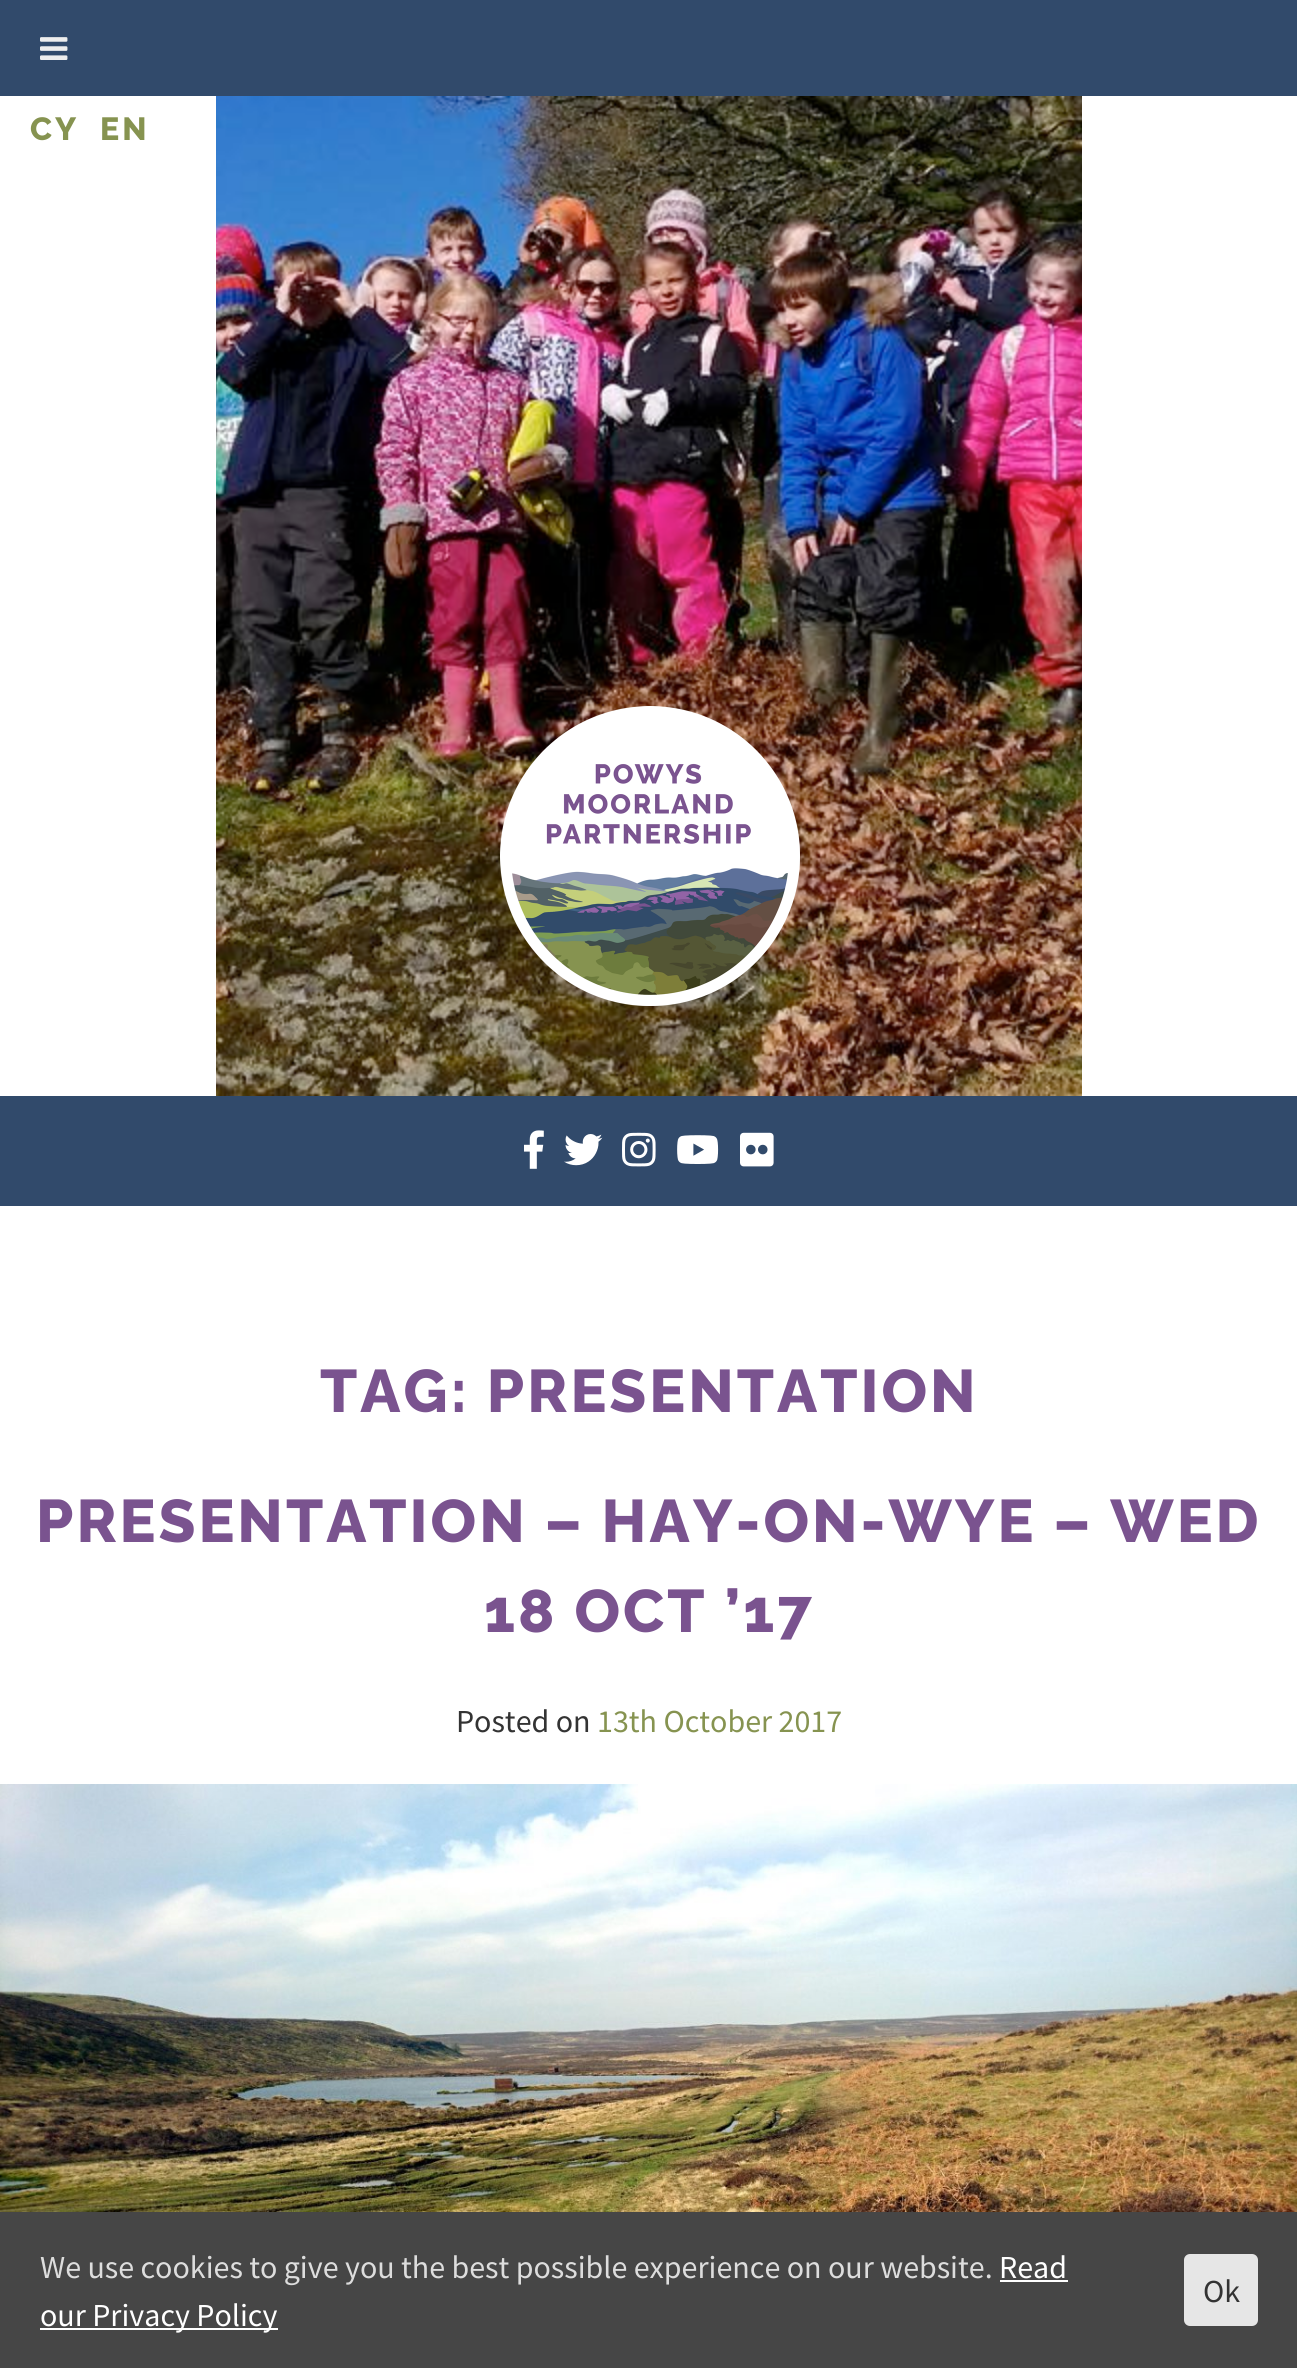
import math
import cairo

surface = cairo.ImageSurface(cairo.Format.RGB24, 1297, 2368)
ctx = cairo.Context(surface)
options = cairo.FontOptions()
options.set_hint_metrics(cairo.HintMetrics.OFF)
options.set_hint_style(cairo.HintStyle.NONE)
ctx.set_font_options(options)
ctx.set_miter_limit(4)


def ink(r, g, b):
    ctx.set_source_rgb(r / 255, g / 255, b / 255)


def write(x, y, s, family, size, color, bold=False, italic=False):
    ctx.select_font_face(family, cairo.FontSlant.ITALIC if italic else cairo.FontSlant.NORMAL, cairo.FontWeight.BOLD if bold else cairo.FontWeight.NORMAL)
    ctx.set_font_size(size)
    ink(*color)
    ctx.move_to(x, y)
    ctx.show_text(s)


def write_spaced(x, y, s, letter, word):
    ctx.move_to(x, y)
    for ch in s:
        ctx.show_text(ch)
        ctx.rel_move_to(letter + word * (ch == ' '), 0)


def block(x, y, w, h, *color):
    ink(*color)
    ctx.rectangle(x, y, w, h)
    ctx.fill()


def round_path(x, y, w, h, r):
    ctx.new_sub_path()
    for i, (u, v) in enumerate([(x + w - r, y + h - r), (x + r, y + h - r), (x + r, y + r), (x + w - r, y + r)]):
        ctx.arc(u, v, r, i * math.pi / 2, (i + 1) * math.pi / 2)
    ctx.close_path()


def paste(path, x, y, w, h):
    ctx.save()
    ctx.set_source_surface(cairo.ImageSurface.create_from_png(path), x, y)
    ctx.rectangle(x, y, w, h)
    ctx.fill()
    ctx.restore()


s1 = dict(family="Source Sans Pro", size=32, color=(51, 51, 51))
s2 = dict(family="Source Sans Pro", size=32, color=(134, 147, 80))
s3 = dict(family="Source Sans Pro", size=32, color=(221, 221, 221))
s4 = dict(family="Source Sans Pro", size=32, color=(255, 255, 255))

ink(255, 255, 255)
ctx.paint()
block(0, 0, 1297, 96, 49, 74, 107)
paste("pic1.png", 40, 37, 28, 23)
ctx.select_font_face("Raleway Thin")
ctx.set_font_size(32)
ink(134, 147, 80)
write_spaced(30, 140, "CY", 3, 0)
write_spaced(100, 140, "EN", 3, 0)
paste("pic2.png", 216, 96, 866, 1000)
block(0, 1096, 1297, 110, 49, 74, 107)
paste("pic3.png", 500, 706, 300, 300)
paste("pic4.png", 524, 1130, 20, 39)
paste("pic5.png", 564, 1134, 39, 32)
paste("pic6.png", 622, 1132, 34, 35)
paste("pic7.png", 677, 1135, 42, 29)
paste("pic8.png", 740, 1132, 34, 35)
ctx.set_font_size(60)
ink(122, 83, 143)
write_spaced(320, 1412, "TAG: PRESENTATION", 3, 0)
write_spaced(36, 1542, "PRESENTATION – HAY-ON-WYE – WED", 3, 0)
write_spaced(484, 1632, "18 OCT ’17", 3, 0)
write(456, 1732, "Posted on", **s1)
write(597, 1732, "13th October 2017", **s2)
paste("pic9.png", 0, 1784, 1297, 428)
block(0, 2212, 1297, 156, 70, 70, 70)
write(40, 2278, "We use cookies to give you the best possible experience on our website.", **s3)
write(999, 2278, "Read", **s4)
block(1000, 2280, 68, 2, 255, 255, 255)
block(40, 2328, 238, 2, 255, 255, 255)
write(40, 2326, "our Privacy Policy", **s4)
ink(230, 230, 230)
round_path(1184, 2254, 74, 72, 6)
ctx.fill()
write(1203, 2302, "Ok", **s1)
surface.write_to_png("screenshot.png")
